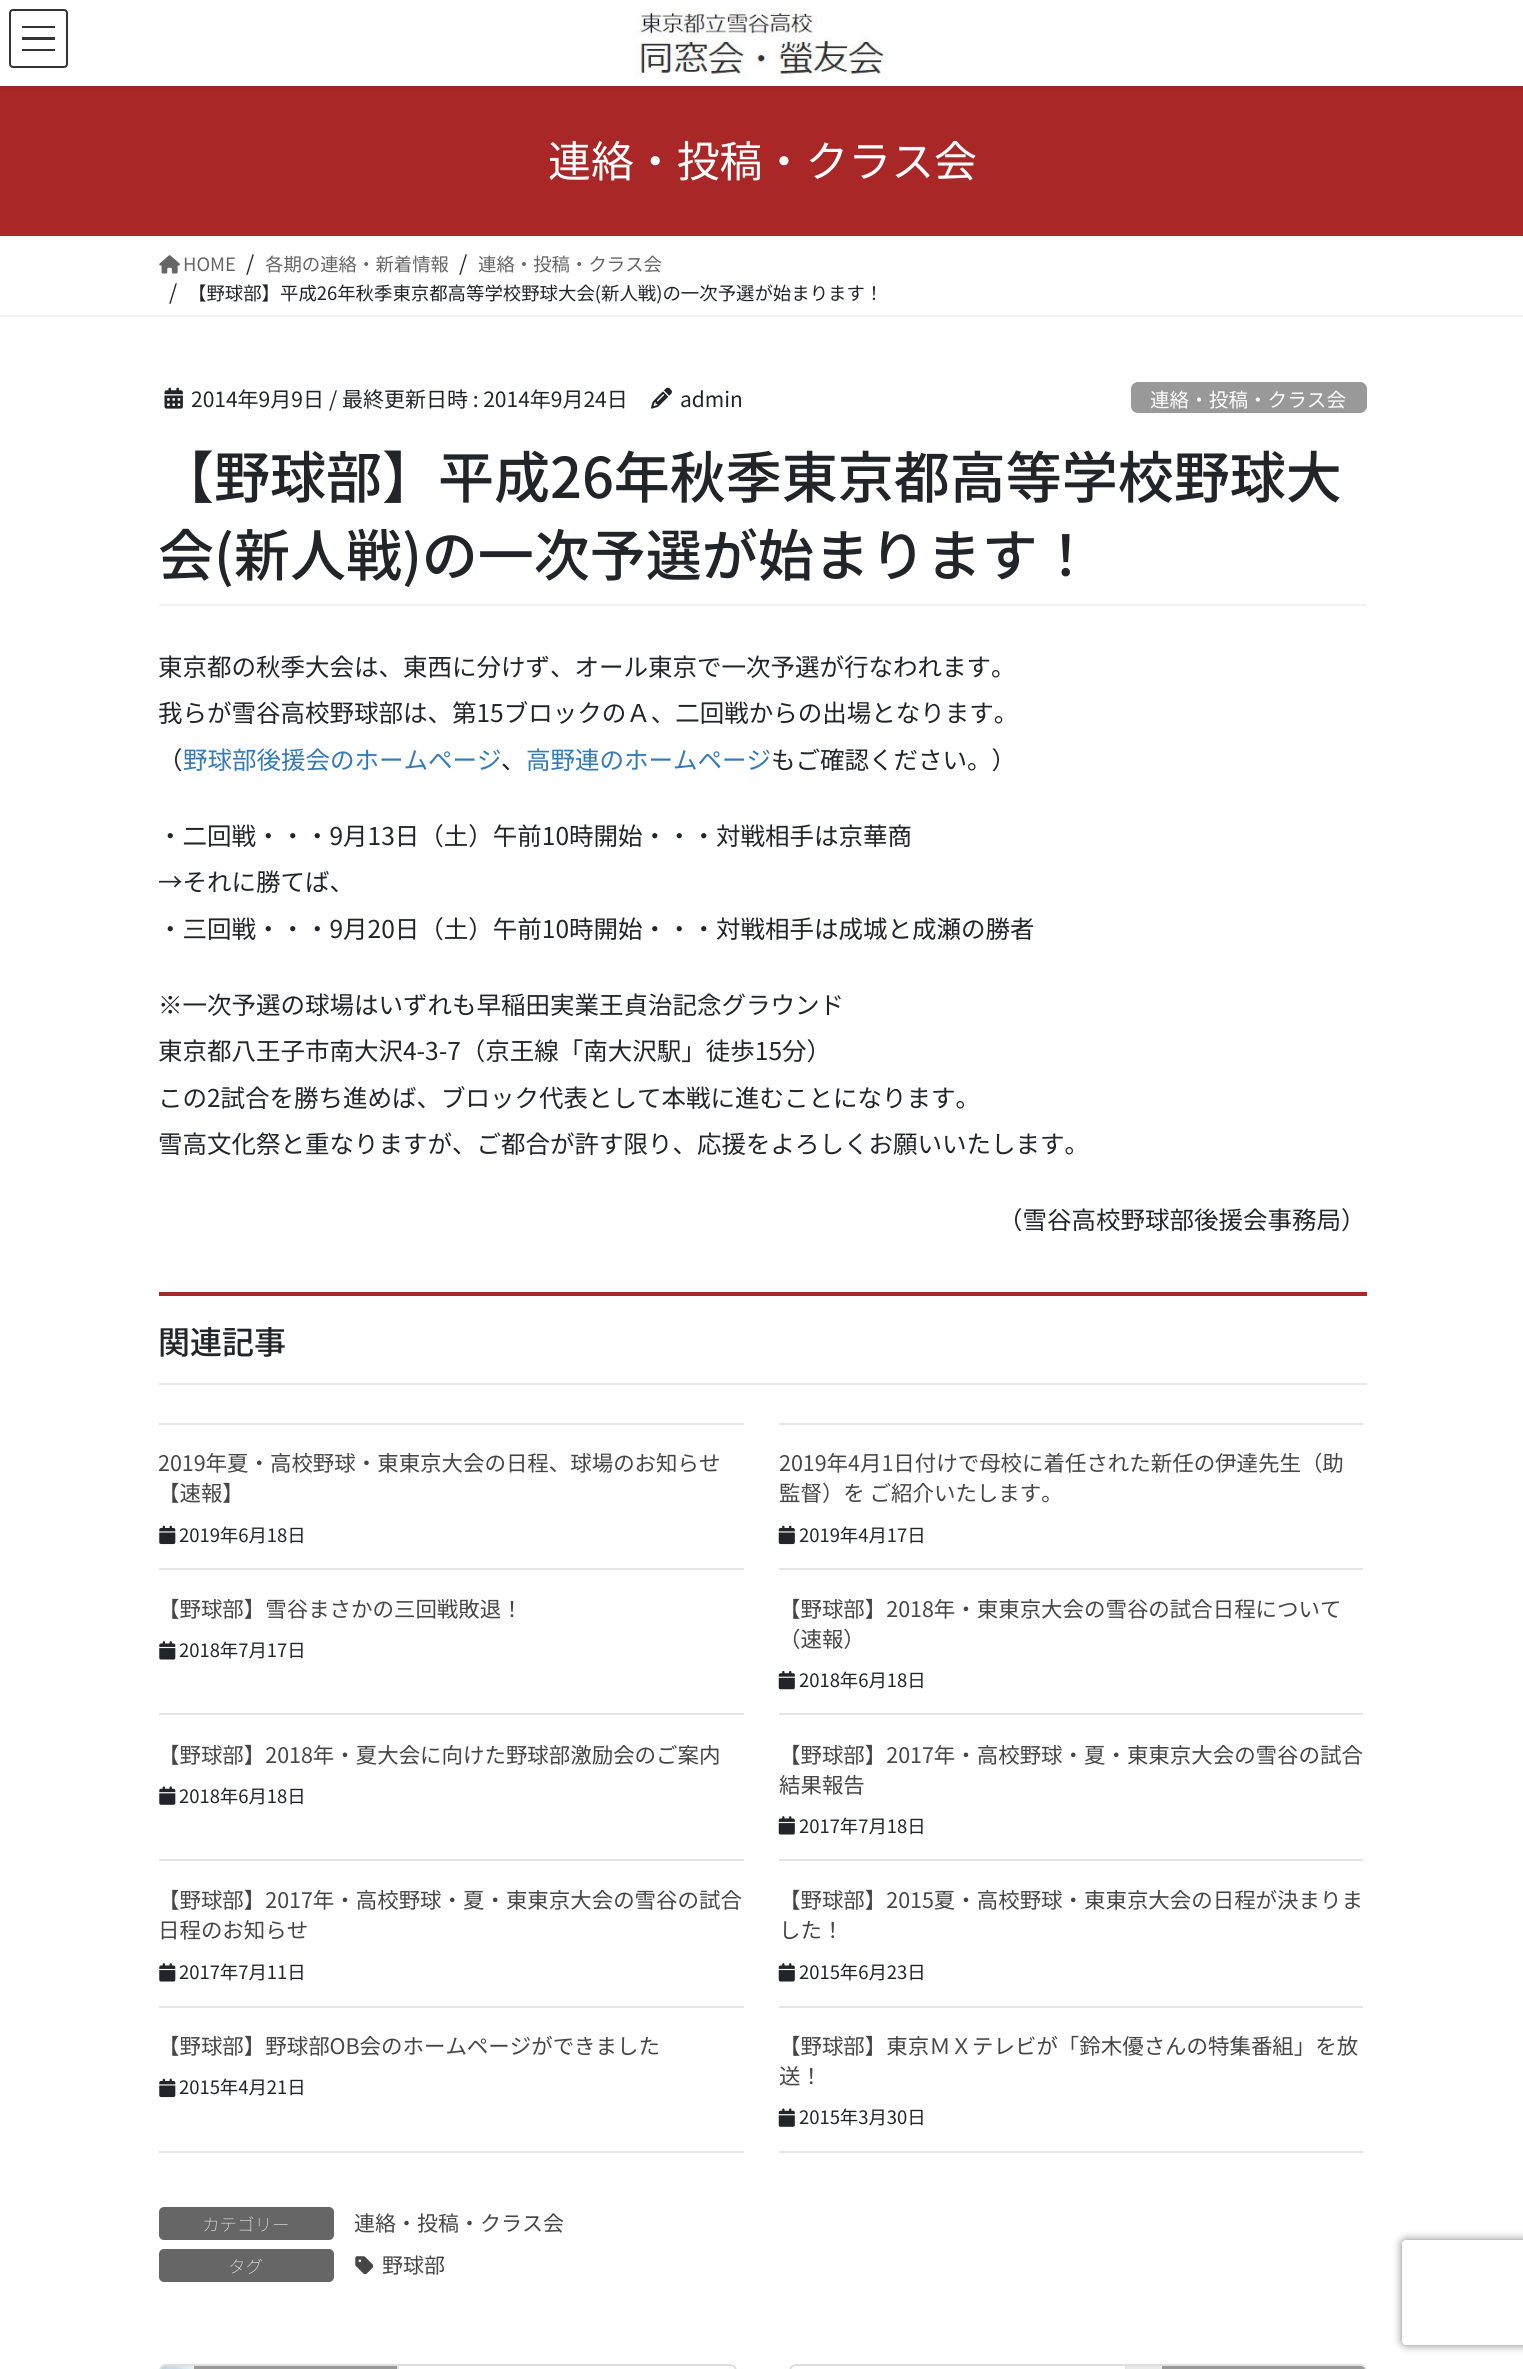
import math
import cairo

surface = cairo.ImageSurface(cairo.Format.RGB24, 1523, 2369)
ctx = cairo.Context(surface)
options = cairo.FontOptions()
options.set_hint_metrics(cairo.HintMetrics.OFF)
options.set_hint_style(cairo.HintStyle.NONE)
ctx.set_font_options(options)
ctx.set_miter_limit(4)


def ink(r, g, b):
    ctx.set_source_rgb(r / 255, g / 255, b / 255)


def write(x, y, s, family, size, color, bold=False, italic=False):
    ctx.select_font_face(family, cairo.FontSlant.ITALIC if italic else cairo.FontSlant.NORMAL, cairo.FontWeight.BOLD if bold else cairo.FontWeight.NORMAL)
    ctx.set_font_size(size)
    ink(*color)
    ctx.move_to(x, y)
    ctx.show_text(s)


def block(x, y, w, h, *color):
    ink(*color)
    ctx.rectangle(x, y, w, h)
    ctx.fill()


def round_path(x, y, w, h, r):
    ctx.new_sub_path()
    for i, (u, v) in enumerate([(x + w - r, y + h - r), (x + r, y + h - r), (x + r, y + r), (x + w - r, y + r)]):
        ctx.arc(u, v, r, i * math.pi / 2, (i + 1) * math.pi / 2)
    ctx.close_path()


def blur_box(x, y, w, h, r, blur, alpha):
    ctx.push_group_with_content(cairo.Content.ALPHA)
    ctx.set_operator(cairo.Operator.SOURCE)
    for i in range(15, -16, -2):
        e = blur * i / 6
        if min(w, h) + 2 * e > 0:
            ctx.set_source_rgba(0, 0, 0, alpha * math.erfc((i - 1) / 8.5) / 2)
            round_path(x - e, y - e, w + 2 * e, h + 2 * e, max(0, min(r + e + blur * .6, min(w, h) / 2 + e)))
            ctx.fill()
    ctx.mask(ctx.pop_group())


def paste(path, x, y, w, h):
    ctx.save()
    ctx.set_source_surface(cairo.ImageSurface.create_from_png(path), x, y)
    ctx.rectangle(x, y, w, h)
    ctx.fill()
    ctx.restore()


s1 = dict(family="Noto Sans JP", size=42.9, color=(255, 255, 255))
s2 = dict(family="Noto Sans JP", size=18.4, color=(102, 102, 102))
s3 = dict(family="Noto Sans JP", size=21, color=(33, 37, 41))
s4 = dict(family="Noto Sans JP", size=18.4, color=(33, 37, 41))
s5 = dict(family="Noto Sans JP", size=19.6, color=(255, 255, 255))
s6 = dict(family="Noto Sans JP Medium", size=56, color=(33, 37, 41))
s7 = dict(family="Noto Sans JP", size=24.5, color=(33, 37, 41))
s8 = dict(family="Noto Sans JP", size=24.5, color=(51, 122, 183))
s9 = dict(family="Noto Sans JP Medium", size=32, color=(33, 37, 41))
s10 = dict(family="Noto Sans JP", size=21.45, color=(70, 70, 70))
s11 = dict(family="Noto Sans JP Thin", size=17.5, color=(255, 255, 255))
s12 = dict(family="Noto Sans JP", size=21, color=(70, 70, 70))

ink(255, 255, 255)
ctx.paint()
block(0, 86, 1523, 150, 170, 39, 39)
ink(0, 0, 0)
blur_box(0, 2, 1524, 86, 0, 2.5, 0.1)
block(0, 0, 1523, 86, 255, 255, 255)
paste("pic1.png", 635, 8, 252, 71)
block(22, 26, 33, 2, 51, 51, 51)
block(22, 37, 33, 3, 51, 51, 51)
block(22, 49, 33, 2, 51, 51, 51)
round_path(10, 10, 57, 57, 3)
ctx.stroke()
write(548, 177, "連絡・投稿・クラス会", **s1)
block(0, 315, 1523, 2, 242, 242, 242)
paste("pic2.png", 159, 255, 21, 19)
write(183, 271, "HOME", **s2)
write(246, 271, "/", **s3)
write(265, 271, "各期の連絡・新着情報", **s2)
write(459, 271, "/", **s3)
write(478, 271, "連絡・投稿・クラス会", **s2)
write(169, 300, "/", **s3)
write(188, 300, "【野球部】平成26年秋季東京都高等学校野球大会(新人戦)の一次予選が始まります！", **s4)
block(159, 604, 1208, 2, 242, 242, 242)
paste("pic3.png", 164, 387, 19, 22)
write(191, 407, "2014年9月9日", **s3)
write(329, 407, "/ 最終更新日時 : 2014年9月24日", **s3)
paste("pic4.png", 651, 387, 21, 22)
write(680, 407, "admin", **s3)
ink(153, 153, 153)
round_path(1131, 382, 236, 31, 7)
ctx.fill()
write(1150, 407, "連絡・投稿・クラス会", **s5)
write(158, 498, "【野球部】平成26年秋季東京都高等学校野球大", **s6)
write(158, 576, "会(新人戦)の一次予選が始まります！", **s6)
write(158, 676, "東京都の秋季大会は、東西に分けず、オール東京で一次予選が行なわれます。", **s7)
write(158, 722, "我らが雪谷高校野球部は、第15ブロックのＡ、二回戦からの出場となります。", **s7)
write(158, 769, "（", **s7)
write(183, 769, "野球部後援会のホームページ", **s8)
write(501, 769, "、", **s7)
write(526, 769, "高野連のホームページ", **s8)
write(771, 769, "もご確認ください。）", **s7)
write(158, 845, "・二回戦・・・9月13日（土）午前10時開始・・・対戦相手は京華商", **s7)
write(158, 891, "→それに勝てば、", **s7)
write(158, 938, "・三回戦・・・9月20日（土）午前10時開始・・・対戦相手は成城と成瀬の勝者", **s7)
write(158, 1014, "※一次予選の球場はいずれも早稲田実業王貞治記念グラウンド", **s7)
write(158, 1060, "東京都八王子市南大沢4-3-7（京王線「南大沢駅」徒歩15分）", **s7)
write(158, 1107, "この2試合を勝ち進めば、ブロック代表として本戦に進むことになります。", **s7)
write(158, 1153, "雪高文化祭と重なりますが、ご都合が許す限り、応援をよろしくお願いいたします。", **s7)
write(998, 1229, "（雪谷高校野球部後援会事務局）", **s7)
block(159, 1292, 1208, 4, 170, 39, 39)
block(159, 1383, 1208, 2, 233, 233, 233)
write(158, 1354, "関連記事", **s9)
block(159, 1423, 585, 2, 229, 229, 229)
block(159, 1568, 585, 2, 229, 229, 229)
write(158, 1471, "2019年夏・高校野球・東東京大会の日程、球場のお知らせ", **s10)
write(158, 1501, "【速報】", **s10)
paste("pic5.png", 159, 1525, 17, 20)
write(179, 1542, "2019年6月18日", **s4)
block(779, 1423, 584, 2, 229, 229, 229)
block(779, 1568, 584, 2, 229, 229, 229)
write(779, 1471, "2019年4月1日付けで母校に着任された新任の伊達先生（助", **s10)
write(779, 1501, "監督）を ご紹介いたします。", **s10)
paste("pic6.png", 778, 1525, 17, 20)
write(799, 1542, "2019年4月17日", **s4)
block(159, 1713, 585, 2, 229, 229, 229)
write(158, 1617, "【野球部】雪谷まさかの三回戦敗退！", **s10)
paste("pic7.png", 159, 1641, 17, 19)
write(179, 1657, "2018年7月17日", **s4)
block(779, 1713, 584, 2, 229, 229, 229)
write(779, 1617, "【野球部】2018年・東東京大会の雪谷の試合日程について", **s10)
write(779, 1647, "（速報）", **s10)
paste("pic8.png", 778, 1670, 17, 20)
write(799, 1687, "2018年6月18日", **s4)
block(159, 1859, 585, 2, 229, 229, 229)
write(158, 1763, "【野球部】2018年・夏大会に向けた野球部激励会のご案内", **s10)
paste("pic9.png", 159, 1786, 17, 19)
write(179, 1803, "2018年6月18日", **s4)
block(779, 1859, 584, 2, 229, 229, 229)
write(779, 1763, "【野球部】2017年・高校野球・夏・東東京大会の雪谷の試合", **s10)
write(779, 1793, "結果報告", **s10)
paste("pic10.png", 778, 1816, 17, 19)
write(799, 1833, "2017年7月18日", **s4)
block(159, 2006, 585, 2, 229, 229, 229)
write(158, 1908, "【野球部】2017年・高校野球・夏・東東京大会の雪谷の試合", **s10)
write(158, 1938, "日程のお知らせ", **s10)
paste("pic7.png", 159, 1963, 17, 19)
write(179, 1979, "2017年7月11日", **s4)
block(779, 2006, 584, 2, 229, 229, 229)
write(779, 1908, "【野球部】2015夏・高校野球・東東京大会の日程が決まりま", **s10)
write(779, 1938, "した！", **s10)
paste("pic10.png", 778, 1963, 17, 19)
write(799, 1979, "2015年6月23日", **s4)
block(159, 2151, 585, 2, 229, 229, 229)
write(158, 2054, "【野球部】野球部OB会のホームページができました", **s10)
paste("pic5.png", 159, 2078, 17, 20)
write(179, 2094, "2015年4月21日", **s4)
block(779, 2151, 584, 2, 229, 229, 229)
write(779, 2054, "【野球部】東京ＭＸテレビが「鈴木優さんの特集番組」を放", **s10)
write(779, 2084, "送！", **s10)
paste("pic11.png", 778, 2108, 17, 19)
write(799, 2124, "2015年3月30日", **s4)
ink(102, 102, 102)
round_path(159, 2207, 175, 33, 5)
ctx.fill()
write(202, 2231, "カテゴリー", **s11)
write(354, 2231, "連絡・投稿・クラス会", **s12)
ink(102, 102, 102)
round_path(159, 2249, 175, 33, 5)
ctx.fill()
write(228, 2273, "タグ", **s11)
paste("pic12.png", 355, 2256, 19, 19)
write(382, 2273, "野球部", **s12)
round_path(160, 2365, 576, 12, 6)
ink(223, 223, 223)
ctx.stroke()
paste("pic13.png", 161, 2366, 33, 3)
block(397, 2366, 2, 3, 229, 229, 229)
block(194, 2366, 203, 3, 153, 153, 153)
round_path(790, 2365, 576, 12, 6)
ink(223, 223, 223)
ctx.stroke()
block(1125, 2366, 239, 3, 232, 232, 232)
block(1125, 2366, 2, 3, 229, 229, 229)
ink(153, 153, 153)
ctx.new_path()
ctx.move_to(1162, 2366)
ctx.line_to(1361, 2366)
ctx.curve_to(1363, 2366, 1365, 2368, 1365, 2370)
ctx.line_to(1365, 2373)
ctx.line_to(1162, 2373)
ctx.close_path()
ctx.fill()
ctx.save()
ctx.set_fill_rule(cairo.FillRule.EVEN_ODD)
ctx.new_path()
ctx.move_to(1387, 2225)
ctx.line_to(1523, 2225)
ctx.line_to(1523, 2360)
ctx.line_to(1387, 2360)
ctx.close_path()
ctx.move_to(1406, 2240)
ctx.line_to(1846, 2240)
ctx.curve_to(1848, 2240, 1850, 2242, 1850, 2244)
ctx.line_to(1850, 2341)
ctx.curve_to(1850, 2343, 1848, 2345, 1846, 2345)
ctx.line_to(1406, 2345)
ctx.curve_to(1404, 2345, 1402, 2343, 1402, 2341)
ctx.line_to(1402, 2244)
ctx.curve_to(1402, 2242, 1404, 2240, 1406, 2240)
ctx.close_path()
ctx.clip()
ink(128, 128, 128)
blur_box(1402, 2240, 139, 105, 4, 4.5, 1)
ctx.restore()
surface.write_to_png("screenshot.png")
